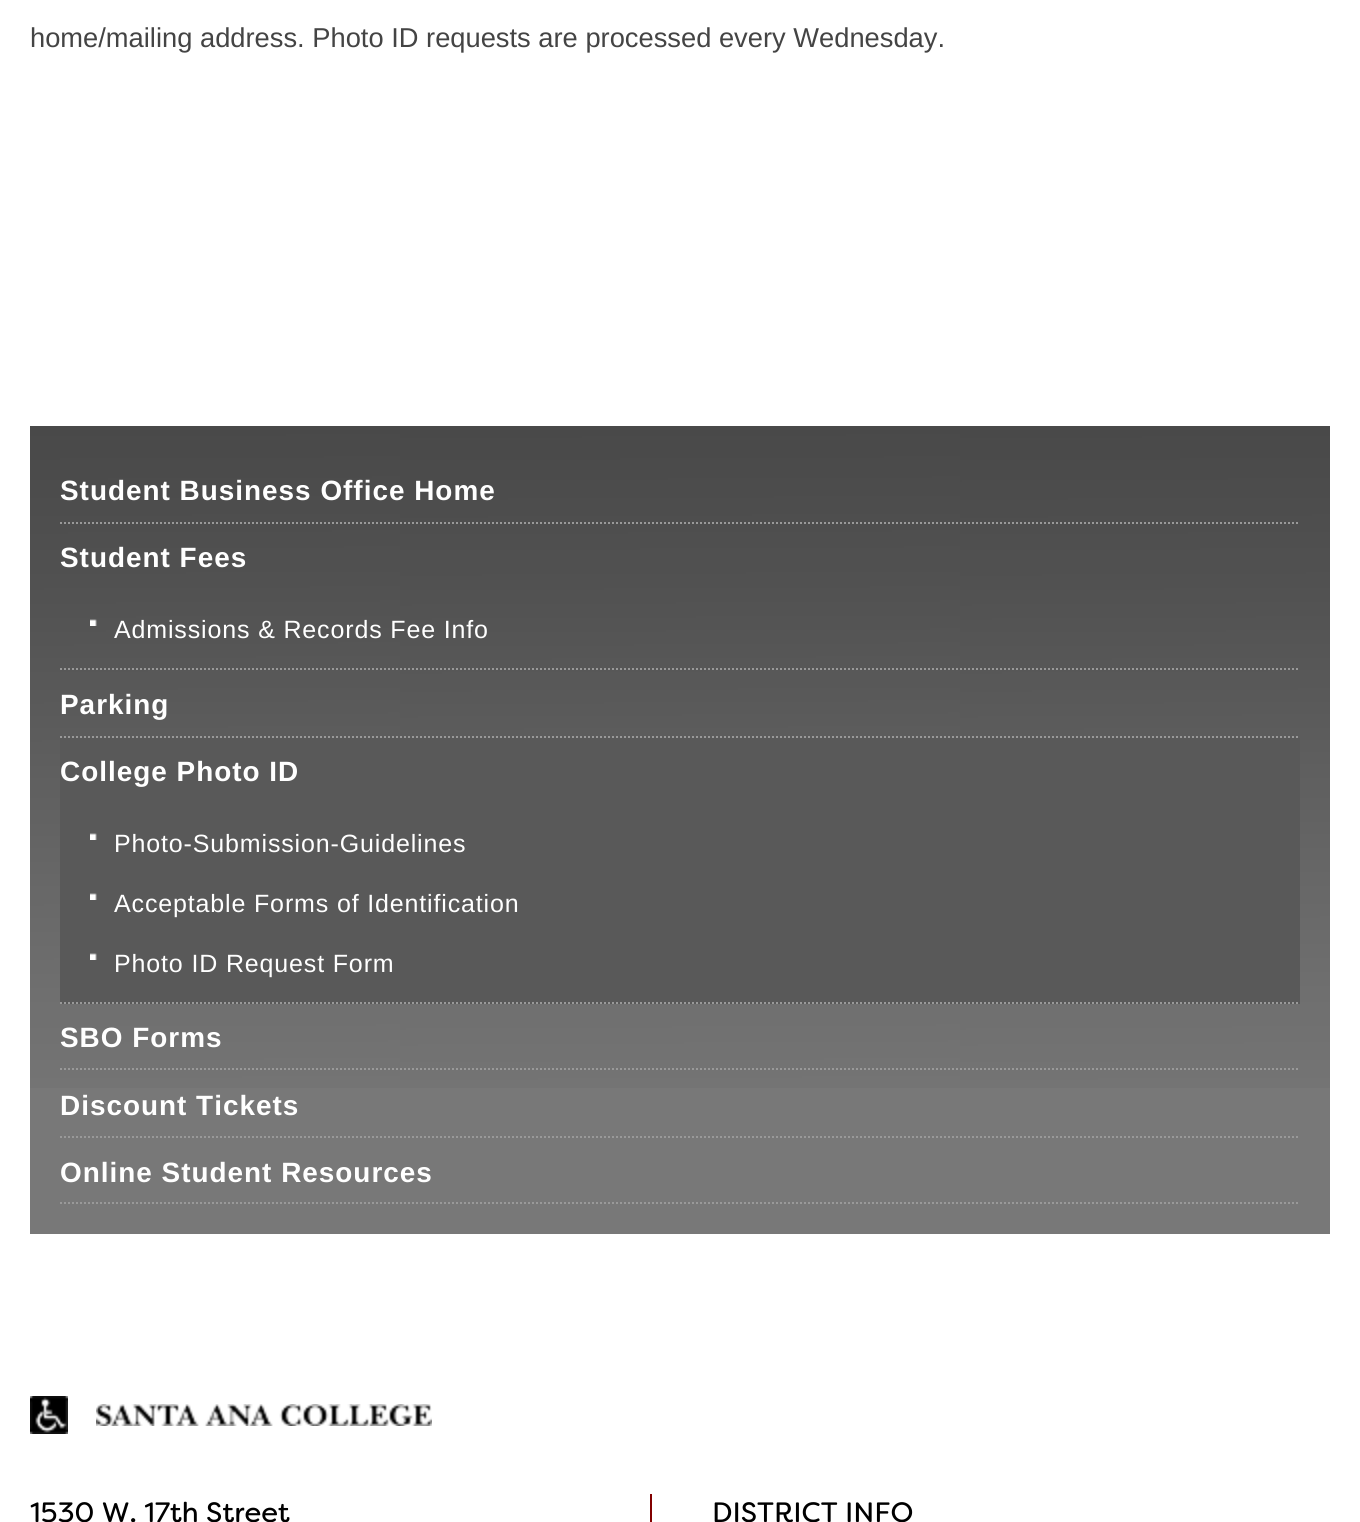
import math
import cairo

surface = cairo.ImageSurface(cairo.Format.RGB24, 1360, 1522)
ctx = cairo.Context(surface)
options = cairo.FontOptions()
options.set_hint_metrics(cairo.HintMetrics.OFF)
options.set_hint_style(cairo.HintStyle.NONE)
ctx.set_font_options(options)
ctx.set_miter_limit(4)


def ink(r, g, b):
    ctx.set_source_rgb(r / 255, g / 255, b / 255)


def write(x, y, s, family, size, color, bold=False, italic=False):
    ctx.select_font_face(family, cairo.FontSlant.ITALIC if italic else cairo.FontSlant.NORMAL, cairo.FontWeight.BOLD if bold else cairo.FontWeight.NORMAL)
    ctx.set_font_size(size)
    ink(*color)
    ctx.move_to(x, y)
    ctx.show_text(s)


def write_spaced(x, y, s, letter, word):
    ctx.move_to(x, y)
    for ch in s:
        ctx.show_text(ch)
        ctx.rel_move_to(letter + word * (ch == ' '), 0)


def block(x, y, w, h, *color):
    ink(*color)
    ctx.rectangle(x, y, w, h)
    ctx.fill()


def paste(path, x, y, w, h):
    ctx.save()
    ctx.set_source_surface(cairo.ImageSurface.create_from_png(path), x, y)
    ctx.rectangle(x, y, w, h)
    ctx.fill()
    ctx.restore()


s1 = dict(family="Liberation Sans", size=27.3, color=(68, 68, 68))
s2 = dict(family="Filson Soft", size=28, color=(0, 0, 0))

ink(255, 255, 255)
ctx.paint()
write(30, 47, "home/mailing address. Photo ID requests are processed every Wednesday.", **s1)
block(30, 426, 1300, 808, 120, 120, 120)
paste("pic1.png", 30, 426, 1300, 662)
ctx.new_path()
ctx.move_to(60, 523)
ctx.line_to(1300, 523)
ink(153, 153, 153)
ctx.set_dash([2, 2])
ctx.stroke()
ctx.select_font_face("Liberation Sans", cairo.FontSlant.NORMAL, cairo.FontWeight.BOLD)
ctx.set_font_size(27.9)
ink(255, 255, 255)
write_spaced(60, 500, "Student Business Office Home", 1, 0)
ctx.new_path()
ctx.move_to(60, 669)
ctx.line_to(1300, 669)
ink(153, 153, 153)
ctx.stroke()
ink(255, 255, 255)
write_spaced(60, 567, "Student Fees", 1, 0)
paste("pic2.png", 90, 619, 7, 7)
ctx.select_font_face("Liberation Sans")
ctx.set_font_size(25)
write_spaced(114, 638, "Admissions & Records Fee Info", 0.85, 0)
ctx.new_path()
ctx.move_to(60, 737)
ctx.line_to(1300, 737)
ink(153, 153, 153)
ctx.stroke()
ctx.select_font_face("Liberation Sans", cairo.FontSlant.NORMAL, cairo.FontWeight.BOLD)
ctx.set_font_size(27.9)
ink(255, 255, 255)
write_spaced(60, 714, "Parking", 1, 0)
block(60, 738, 1240, 266, 89, 89, 89)
ctx.new_path()
ctx.move_to(60, 1003)
ctx.line_to(1300, 1003)
ink(153, 153, 153)
ctx.stroke()
ink(255, 255, 255)
write_spaced(60, 781, "College Photo ID", 1, 0)
paste("pic3.png", 90, 833, 7, 7)
ctx.select_font_face("Liberation Sans")
ctx.set_font_size(25)
write_spaced(114, 852, "Photo-Submission-Guidelines", 0.85, 0)
paste("pic3.png", 90, 893, 7, 7)
write_spaced(114, 912, "Acceptable Forms of Identification", 0.85, 0)
paste("pic3.png", 90, 953, 7, 7)
write_spaced(114, 972, "Photo ID Request Form", 0.85, 0)
ctx.new_path()
ctx.move_to(60, 1069)
ctx.line_to(1300, 1069)
ink(153, 153, 153)
ctx.stroke()
ctx.select_font_face("Liberation Sans", cairo.FontSlant.NORMAL, cairo.FontWeight.BOLD)
ctx.set_font_size(27.9)
ink(255, 255, 255)
write_spaced(60, 1047, "SBO Forms", 1, 0)
ctx.new_path()
ctx.move_to(60, 1137)
ctx.line_to(1300, 1137)
ink(153, 153, 153)
ctx.stroke()
ink(255, 255, 255)
write_spaced(60, 1115, "Discount Tickets", 1, 0)
ctx.new_path()
ctx.move_to(60, 1203)
ctx.line_to(1300, 1203)
ink(153, 153, 153)
ctx.stroke()
ink(255, 255, 255)
write_spaced(60, 1182, "Online Student Resources", 1, 0)
paste("pic4.png", 30, 1396, 38, 38)
paste("pic5.png", 96, 1404, 336, 22)
write(30, 1522, "1530 W. 17th Street", **s2)
block(650, 1494, 2, 28, 130, 0, 0)
write(712, 1522, "DISTRICT INFO", **s2)
surface.write_to_png("screenshot.png")
